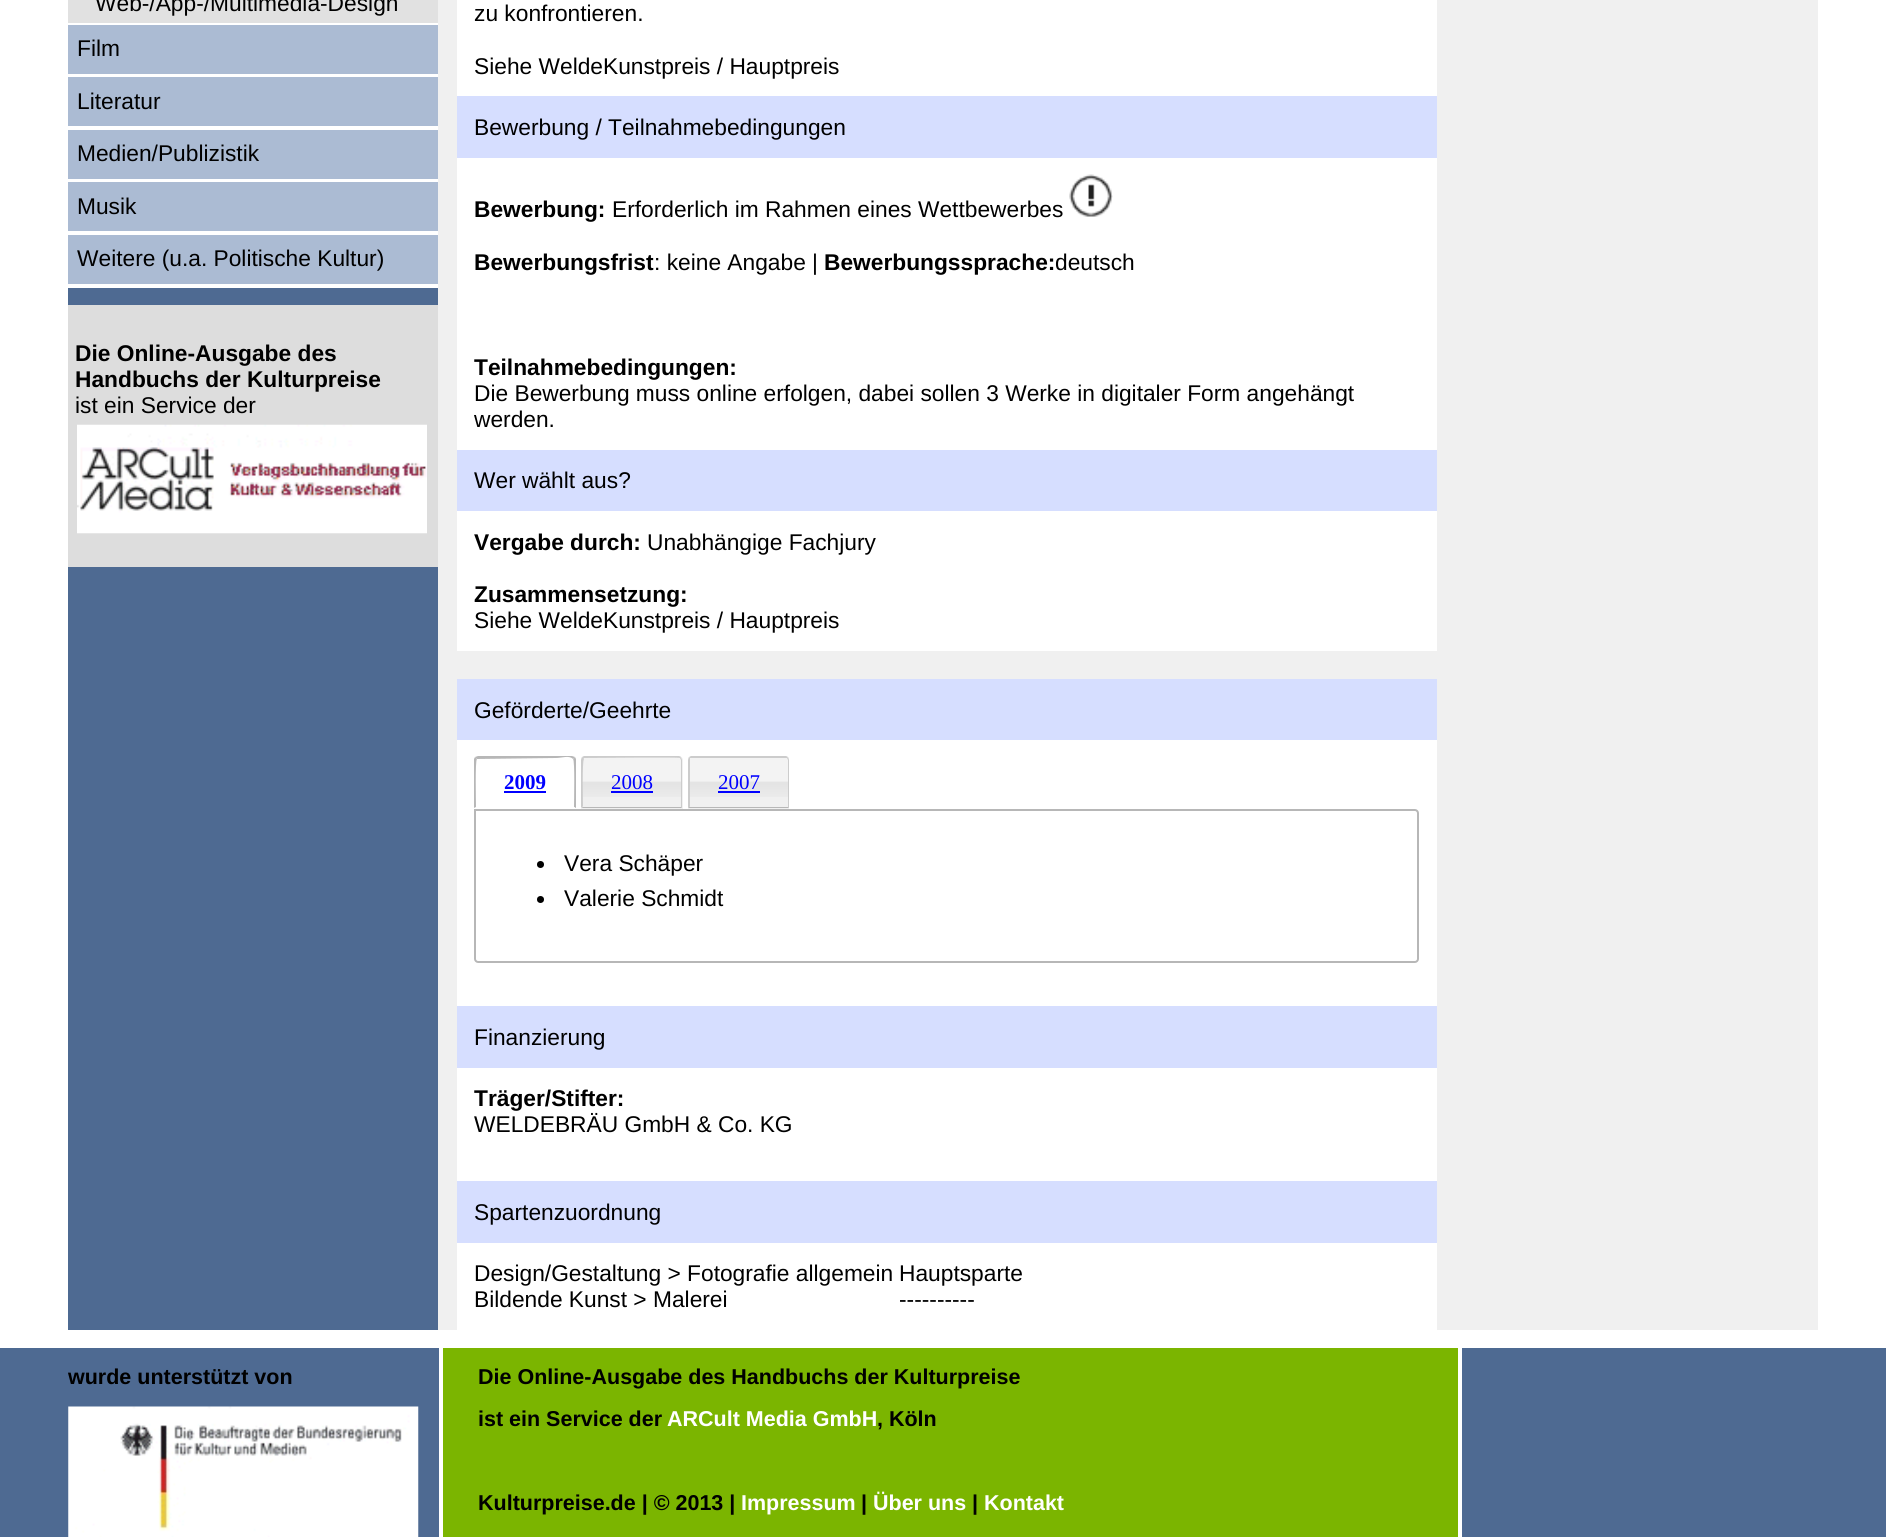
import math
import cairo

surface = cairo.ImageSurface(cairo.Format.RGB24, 1886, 1537)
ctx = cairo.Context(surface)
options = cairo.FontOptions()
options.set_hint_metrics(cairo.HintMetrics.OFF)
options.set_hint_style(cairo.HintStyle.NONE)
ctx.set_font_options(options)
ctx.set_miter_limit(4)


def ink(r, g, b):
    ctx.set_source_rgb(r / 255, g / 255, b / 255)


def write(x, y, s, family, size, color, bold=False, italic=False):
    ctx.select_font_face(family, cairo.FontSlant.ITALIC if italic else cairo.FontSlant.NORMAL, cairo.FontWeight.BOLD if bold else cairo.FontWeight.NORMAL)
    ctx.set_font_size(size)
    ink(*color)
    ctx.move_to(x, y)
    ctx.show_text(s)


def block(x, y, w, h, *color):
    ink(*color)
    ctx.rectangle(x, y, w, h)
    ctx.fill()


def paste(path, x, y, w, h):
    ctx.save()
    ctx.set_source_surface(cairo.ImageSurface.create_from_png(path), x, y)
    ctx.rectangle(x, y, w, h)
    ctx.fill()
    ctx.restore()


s1 = dict(family="Liberation Sans", size=22.75, color=(0, 0, 0))
s2 = dict(family="Liberation Sans", size=22.75, color=(0, 0, 0), bold=True)
s3 = dict(family="Liberation Serif", size=21, color=(0, 0, 255), bold=True)
s4 = dict(family="Liberation Serif", size=21, color=(0, 0, 255))
s5 = dict(family="Liberation Sans", size=21.5, color=(0, 0, 0), bold=True)
s6 = dict(family="Liberation Sans", size=21.5, color=(255, 255, 255), bold=True)

ink(255, 255, 255)
ctx.paint()
block(438, 0, 1380, 1330, 240, 240, 240)
block(68, 288, 370, 1042, 78, 106, 146)
block(68, 0, 370, 23, 225, 225, 225)
write(95, 11, "Web-/App-/Multimedia-Design", **s1)
block(68, 25, 370, 49, 171, 187, 211)
write(77, 56, "Film", **s1)
block(68, 77, 370, 49, 171, 187, 211)
write(77, 109, "Literatur", **s1)
block(68, 130, 370, 49, 171, 187, 211)
write(77, 161, "Medien/Publizistik", **s1)
block(68, 182, 370, 49, 171, 187, 211)
write(77, 214, "Musik", **s1)
block(68, 235, 370, 49, 171, 187, 211)
write(77, 266, "Weitere (u.a. Politische Kultur)", **s1)
block(68, 305, 370, 262, 221, 221, 221)
write(75, 361, "Die Online-Ausgabe des", **s2)
write(75, 387, "Handbuchs der Kulturpreise", **s2)
write(75, 413, "ist ein Service der", **s1)
paste("pic1.png", 77, 424, 350, 110)
block(457, 0, 980, 96, 255, 255, 255)
write(474, 21, "zu konfrontieren.", **s1)
write(474, 74, "Siehe WeldeKunstpreis / Hauptpreis", **s1)
block(457, 96, 980, 62, 214, 222, 255)
write(474, 135, "Bewerbung / Teilnahmebedingungen", **s1)
block(457, 158, 980, 292, 255, 255, 255)
write(474, 217, "Bewerbung:", **s2)
write(612, 217, "Erforderlich im Rahmen eines Wettbewerbes", **s1)
paste("pic2.png", 1069, 174, 44, 43)
write(474, 270, "Bewerbungsfrist", **s2)
write(654, 270, ": keine Angabe |", **s1)
write(824, 270, "Bewerbungssprache:", **s2)
write(1055, 270, "deutsch", **s1)
write(474, 375, "Teilnahmebedingungen:", **s2)
write(474, 401, "Die Bewerbung muss online erfolgen, dabei sollen 3 Werke in digitaler Form angehängt", **s1)
write(474, 427, "werden.", **s1)
block(457, 450, 980, 61, 214, 222, 255)
write(474, 488, "Wer wählt aus?", **s1)
block(457, 511, 980, 140, 255, 255, 255)
write(474, 550, "Vergabe durch:", **s2)
write(647, 550, "Unabhängige Fachjury", **s1)
write(474, 602, "Zusammensetzung:", **s2)
write(474, 628, "Siehe WeldeKunstpreis / Hauptpreis", **s1)
block(457, 679, 980, 61, 214, 222, 255)
write(474, 718, "Geförderte/Geehrte", **s1)
block(457, 740, 980, 266, 255, 255, 255)
write(504, 789, "2009", **s3)
ink(183, 183, 183)
ctx.new_path()
ctx.move_to(478, 756)
ctx.line_to(475, 757)
ctx.line_to(477, 759)
ctx.line_to(556, 758)
ctx.curve_to(562, 758, 569, 755, 573, 759)
ctx.line_to(575, 757)
ctx.line_to(572, 756)
ctx.close_path()
ctx.fill()
ctx.new_path()
ctx.move_to(576, 808)
ctx.line_to(574, 807)
ctx.curve_to(574, 801, 575, 760, 573, 759)
ctx.line_to(575, 757)
ctx.line_to(576, 759)
ctx.close_path()
ctx.fill()
ink(255, 255, 255)
ctx.new_path()
ctx.move_to(575, 808)
ctx.line_to(475, 808)
ctx.line_to(476, 807)
ctx.line_to(574, 807)
ctx.close_path()
ctx.fill()
ink(183, 183, 183)
ctx.new_path()
ctx.move_to(474, 759)
ctx.line_to(475, 757)
ctx.line_to(477, 759)
ctx.curve_to(475, 760, 476, 801, 476, 807)
ctx.line_to(474, 808)
ctx.close_path()
ctx.fill()
block(504, 791, 42, 2, 0, 0, 255)
ink(240, 240, 240)
ctx.new_path()
ctx.move_to(585, 756)
ctx.line_to(679, 756)
ctx.curve_to(681, 756, 683, 758, 683, 760)
ctx.line_to(683, 809)
ctx.line_to(581, 809)
ctx.line_to(581, 760)
ctx.curve_to(581, 758, 583, 756, 585, 756)
ctx.close_path()
ctx.fill()
paste("pic3.png", 581, 757, 101, 40)
ctx.new_path()
ctx.move_to(692, 756)
ctx.line_to(785, 756)
ctx.curve_to(787, 756, 789, 758, 789, 760)
ctx.line_to(789, 809)
ctx.line_to(688, 809)
ctx.line_to(688, 760)
ctx.curve_to(688, 758, 690, 756, 692, 756)
ctx.close_path()
ctx.fill()
paste("pic4.png", 688, 757, 101, 40)
write(611, 789, "2008", **s4)
ink(204, 204, 204)
ctx.new_path()
ctx.move_to(584, 756)
ctx.line_to(582, 757)
ctx.line_to(584, 759)
ctx.line_to(584, 758)
ctx.curve_to(593, 758, 679, 757, 680, 758)
ctx.line_to(681, 757)
ctx.line_to(679, 756)
ctx.close_path()
ctx.fill()
ctx.new_path()
ctx.move_to(681, 757)
ctx.line_to(682, 760)
ctx.line_to(682, 808)
ctx.line_to(681, 807)
ctx.line_to(681, 760)
ctx.line_to(680, 758)
ctx.close_path()
ctx.fill()
ink(183, 183, 183)
ctx.new_path()
ctx.move_to(682, 808)
ctx.line_to(681, 807)
ctx.line_to(583, 807)
ctx.line_to(583, 806)
ctx.line_to(582, 808)
ctx.close_path()
ctx.fill()
ink(204, 204, 204)
ctx.new_path()
ctx.move_to(581, 760)
ctx.line_to(581, 808)
ctx.line_to(583, 806)
ctx.curve_to(583, 801, 582, 761, 584, 759)
ctx.line_to(582, 757)
ctx.close_path()
ctx.fill()
block(611, 791, 42, 2, 0, 0, 255)
write(718, 789, "2007", **s4)
ink(204, 204, 204)
ctx.new_path()
ctx.move_to(691, 756)
ctx.line_to(689, 757)
ctx.line_to(690, 758)
ctx.line_to(691, 758)
ctx.line_to(787, 758)
ctx.line_to(788, 757)
ctx.line_to(786, 756)
ctx.close_path()
ctx.fill()
ctx.new_path()
ctx.move_to(788, 757)
ctx.line_to(789, 760)
ctx.line_to(789, 808)
ctx.line_to(788, 807)
ctx.line_to(788, 760)
ctx.line_to(787, 758)
ctx.close_path()
ctx.fill()
ink(183, 183, 183)
ctx.new_path()
ctx.move_to(789, 808)
ctx.line_to(688, 808)
ctx.line_to(690, 806)
ctx.line_to(690, 807)
ctx.line_to(788, 807)
ctx.close_path()
ctx.fill()
ink(204, 204, 204)
ctx.new_path()
ctx.move_to(689, 757)
ctx.line_to(688, 760)
ctx.line_to(688, 808)
ctx.line_to(690, 806)
ctx.line_to(690, 758)
ctx.close_path()
ctx.fill()
block(718, 791, 42, 2, 0, 0, 255)
ctx.new_path()
ctx.move_to(475, 810)
ctx.line_to(1415, 810)
ctx.curve_to(1416.5, 810, 1418, 811.5, 1418, 813)
ctx.line_to(1418, 959)
ctx.curve_to(1418, 960.5, 1416.5, 962, 1415, 962)
ctx.line_to(478, 962)
ctx.curve_to(476.5, 962, 475, 960.5, 475, 959)
ctx.close_path()
ink(183, 183, 183)
ctx.stroke()
ink(0, 0, 0)
ctx.arc(540.5, 864.5, 3.5, 0, 2 * math.pi)
ctx.fill()
write(564, 871, "Vera Schäper", **s1)
ctx.new_path()
ctx.arc(540.5, 899.5, 3.5, 0, 2 * math.pi)
ctx.fill()
write(564, 906, "Valerie Schmidt", **s1)
block(457, 1006, 980, 62, 214, 222, 255)
write(474, 1045, "Finanzierung", **s1)
block(457, 1068, 980, 113, 255, 255, 255)
write(474, 1106, "Träger/Stifter:", **s2)
write(474, 1132, "WELDEBRÄU GmbH & Co. KG", **s1)
block(457, 1181, 980, 62, 214, 222, 255)
write(474, 1220, "Spartenzuordnung", **s1)
block(457, 1243, 980, 87, 255, 255, 255)
write(474, 1281, "Design/Gestaltung > Fotografie allgemein", **s1)
write(899, 1281, "Hauptsparte", **s1)
write(474, 1307, "Bildende Kunst > Malerei", **s1)
write(899, 1307, "----------", **s1)
block(0, 1348, 1886, 189, 78, 106, 146)
block(439, 1348, 4, 189, 255, 255, 255)
write(68, 1384, "wurde unterstützt von", **s5)
paste("pic5.png", 68, 1406, 351, 131)
block(443, 1348, 1015, 189, 123, 181, 0)
block(1458, 1348, 4, 189, 255, 255, 255)
write(478, 1384, "Die Online-Ausgabe des Handbuchs der Kulturpreise", **s5)
write(478, 1426, "ist ein Service der", **s5)
write(667, 1426, "ARCult Media GmbH", **s6)
write(877, 1426, ", Köln", **s5)
write(478, 1510, "Kulturpreise.de | © 2013 |", **s5)
write(741, 1510, "Impressum", **s6)
write(861, 1510, "|", **s5)
write(873, 1510, "Über uns", **s6)
write(972, 1510, "|", **s5)
write(984, 1510, "Kontakt", **s6)
surface.write_to_png("screenshot.png")
